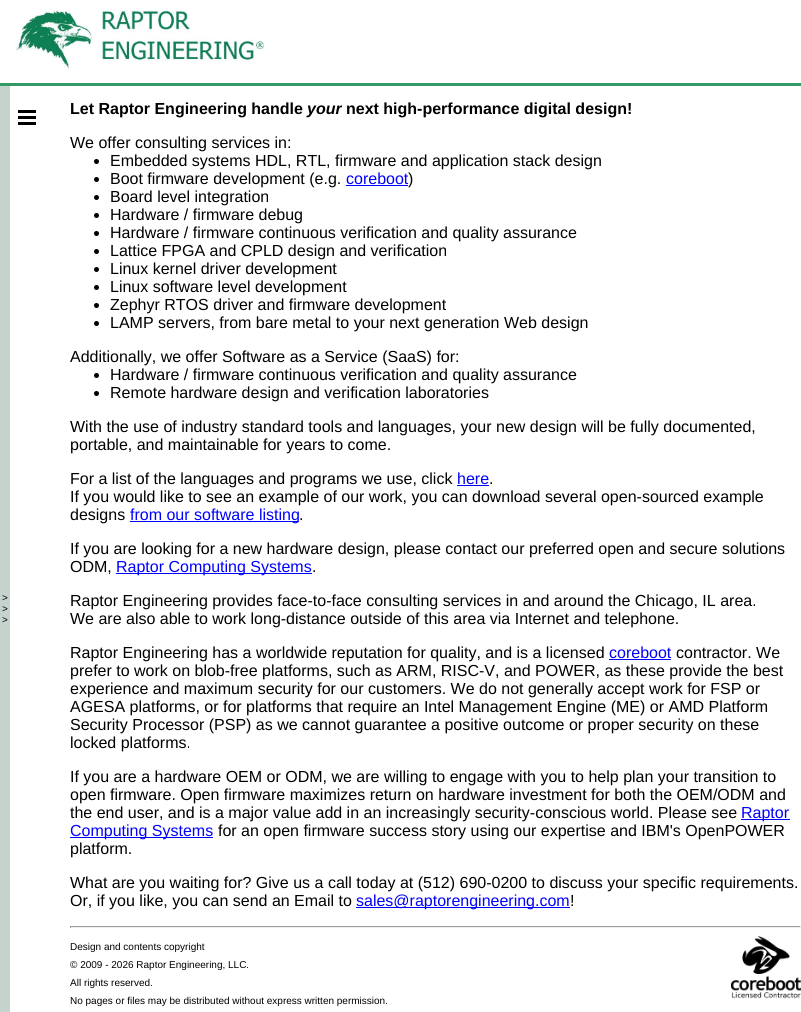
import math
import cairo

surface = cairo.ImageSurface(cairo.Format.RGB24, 801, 1012)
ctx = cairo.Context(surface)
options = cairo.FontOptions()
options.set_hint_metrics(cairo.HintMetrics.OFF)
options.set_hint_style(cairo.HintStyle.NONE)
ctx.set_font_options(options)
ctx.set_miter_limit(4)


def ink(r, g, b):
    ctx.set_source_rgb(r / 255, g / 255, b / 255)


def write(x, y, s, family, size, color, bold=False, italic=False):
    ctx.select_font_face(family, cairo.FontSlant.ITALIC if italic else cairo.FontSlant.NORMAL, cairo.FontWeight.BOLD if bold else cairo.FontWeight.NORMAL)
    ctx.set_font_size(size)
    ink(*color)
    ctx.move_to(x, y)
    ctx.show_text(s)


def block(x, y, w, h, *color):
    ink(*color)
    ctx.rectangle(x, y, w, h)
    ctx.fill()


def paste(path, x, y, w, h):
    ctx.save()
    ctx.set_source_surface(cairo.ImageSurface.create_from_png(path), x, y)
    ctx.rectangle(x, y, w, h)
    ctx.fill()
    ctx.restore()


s1 = dict(family="Liberation Sans", size=16, color=(0, 0, 0), bold=True)
s2 = dict(family="Liberation Sans", size=16, color=(0, 0, 0), bold=True, italic=True)
s3 = dict(family="Liberation Sans", size=16, color=(0, 0, 0))
s4 = dict(family="Liberation Sans", size=16, color=(0, 0, 255))
s5 = dict(family="Liberation Sans", size=10, color=(0, 0, 0))

ink(255, 255, 255)
ctx.paint()
paste("pic1.png", 15, 10, 250, 59)
block(0, 83, 801, 3, 51, 153, 102)
block(18, 110, 18, 3, 0, 0, 0)
block(18, 116, 18, 3, 0, 0, 0)
block(18, 122, 18, 3, 0, 0, 0)
write(70, 114, "Let Raptor Engineering handle", **s1)
write(307, 114, "your", **s2)
write(346, 114, "next high-performance digital design!", **s1)
write(70, 148, "We offer consulting services in:", **s3)
ctx.new_path()
ctx.arc(96.5, 161.5, 2.5, 0, 2 * math.pi)
ctx.fill()
write(110, 166, "Embedded systems HDL, RTL, firmware and application stack design", **s3)
ctx.new_path()
ctx.arc(96.5, 179.5, 2.5, 0, 2 * math.pi)
ctx.fill()
write(110, 184, "Boot firmware development (e.g.", **s3)
write(346, 184, "coreboot", **s4)
block(346, 185, 62, 1, 0, 0, 255)
write(408, 184, ")", **s3)
ctx.new_path()
ctx.arc(96.5, 197.5, 2.5, 0, 2 * math.pi)
ctx.fill()
write(110, 202, "Board level integration", **s3)
ctx.new_path()
ctx.arc(96.5, 215.5, 2.5, 0, 2 * math.pi)
ctx.fill()
write(110, 220, "Hardware / firmware debug", **s3)
ctx.new_path()
ctx.arc(96.5, 233.5, 2.5, 0, 2 * math.pi)
ctx.fill()
write(110, 238, "Hardware / firmware continuous verification and quality assurance", **s3)
ctx.new_path()
ctx.arc(96.5, 251.5, 2.5, 0, 2 * math.pi)
ctx.fill()
write(110, 256, "Lattice FPGA and CPLD design and verification", **s3)
ctx.new_path()
ctx.arc(96.5, 269.5, 2.5, 0, 2 * math.pi)
ctx.fill()
write(110, 274, "Linux kernel driver development", **s3)
ctx.new_path()
ctx.arc(96.5, 287.5, 2.5, 0, 2 * math.pi)
ctx.fill()
write(110, 292, "Linux software level development", **s3)
ctx.new_path()
ctx.arc(96.5, 305.5, 2.5, 0, 2 * math.pi)
ctx.fill()
write(110, 310, "Zephyr RTOS driver and firmware development", **s3)
ctx.new_path()
ctx.arc(96.5, 323.5, 2.5, 0, 2 * math.pi)
ctx.fill()
write(110, 328, "LAMP servers, from bare metal to your next generation Web design", **s3)
write(70, 362, "Additionally, we offer Software as a Service (SaaS) for:", **s3)
ctx.new_path()
ctx.arc(96.5, 375.5, 2.5, 0, 2 * math.pi)
ctx.fill()
write(110, 380, "Hardware / firmware continuous verification and quality assurance", **s3)
ctx.new_path()
ctx.arc(96.5, 393.5, 2.5, 0, 2 * math.pi)
ctx.fill()
write(110, 398, "Remote hardware design and verification laboratories", **s3)
write(70, 432, "With the use of industry standard tools and languages, your new design will be fully documented,", **s3)
write(70, 450, "portable, and maintainable for years to come.", **s3)
write(70, 484, "For a list of the languages and programs we use, click", **s3)
write(457, 484, "here", **s4)
block(457, 485, 32, 1, 0, 0, 255)
write(489, 484, ".", **s3)
write(70, 502, "If you would like to see an example of our work, you can download several open-sourced example", **s3)
write(70, 520, "designs", **s3)
block(130, 521, 169, 1, 0, 0, 255)
write(130, 520, "from our software listing", **s4)
write(299, 520, ".", **s3)
write(70, 554, "If you are looking for a new hardware design, please contact our preferred open and secure solutions", **s3)
write(70, 572, "ODM,", **s3)
block(116, 573, 196, 1, 0, 0, 255)
write(116, 572, "Raptor Computing Systems", **s4)
write(312, 572, ".", **s3)
write(70, 606, "Raptor Engineering provides face-to-face consulting services in and around the Chicago, IL area.", **s3)
write(70, 624, "We are also able to work long-distance outside of this area via Internet and telephone.", **s3)
write(70, 658, "Raptor Engineering has a worldwide reputation for quality, and is a licensed", **s3)
write(609, 658, "coreboot", **s4)
block(609, 659, 62, 1, 0, 0, 255)
write(676, 658, "contractor. We", **s3)
write(70, 676, "prefer to work on blob-free platforms, such as ARM, RISC-V, and POWER, as these provide the best", **s3)
write(70, 694, "experience and maximum security for our customers. We do not generally accept work for FSP or", **s3)
write(70, 712, "AGESA platforms, or for platforms that require an Intel Management Engine (ME) or AMD Platform", **s3)
write(70, 730, "Security Processor (PSP) as we cannot guarantee a positive outcome or proper security on these", **s3)
write(70, 748, "locked platforms.", **s3)
write(70, 782, "If you are a hardware OEM or ODM, we are willing to engage with you to help plan your transition to", **s3)
write(70, 800, "open firmware. Open firmware maximizes return on hardware investment for both the OEM/ODM and", **s3)
write(70, 818, "the end user, and is a major value add in an increasingly security-conscious world. Please see", **s3)
block(741, 819, 49, 1, 0, 0, 255)
write(741, 818, "Raptor", **s4)
block(70, 837, 143, 1, 0, 0, 255)
write(70, 836, "Computing Systems", **s4)
write(218, 836, "for an open firmware success story using our expertise and IBM's OpenPOWER", **s3)
write(70, 854, "platform.", **s3)
write(70, 888, "What are you waiting for? Give us a call today at (512) 690-0200 to discuss your specific requirements.", **s3)
write(70, 906, "Or, if you like, you can send an Email to", **s3)
block(356, 907, 214, 1, 0, 0, 255)
write(356, 906, "sales@raptorengineering.com", **s4)
write(570, 906, "!", **s3)
block(70, 926, 731, 1, 159, 159, 159)
block(800, 926, 1, 2, 238, 238, 238)
block(70, 927, 731, 1, 238, 238, 238)
block(70, 926, 1, 2, 159, 159, 159)
write(70, 950, "Design and contents copyright", **s5)
paste("pic2.png", 731, 936, 70, 63)
write(70, 968, "© 2009 - 2026 Raptor Engineering, LLC.", **s5)
write(70, 986, "All rights reserved.", **s5)
write(70, 1004, "No pages or files may be distributed without express written permission.", **s5)
block(0, 86, 10, 926, 198, 211, 205)
write(2, 601, ">", **s5)
write(2, 612, ">", **s5)
write(2, 623, ">", **s5)
surface.write_to_png("screenshot.png")
